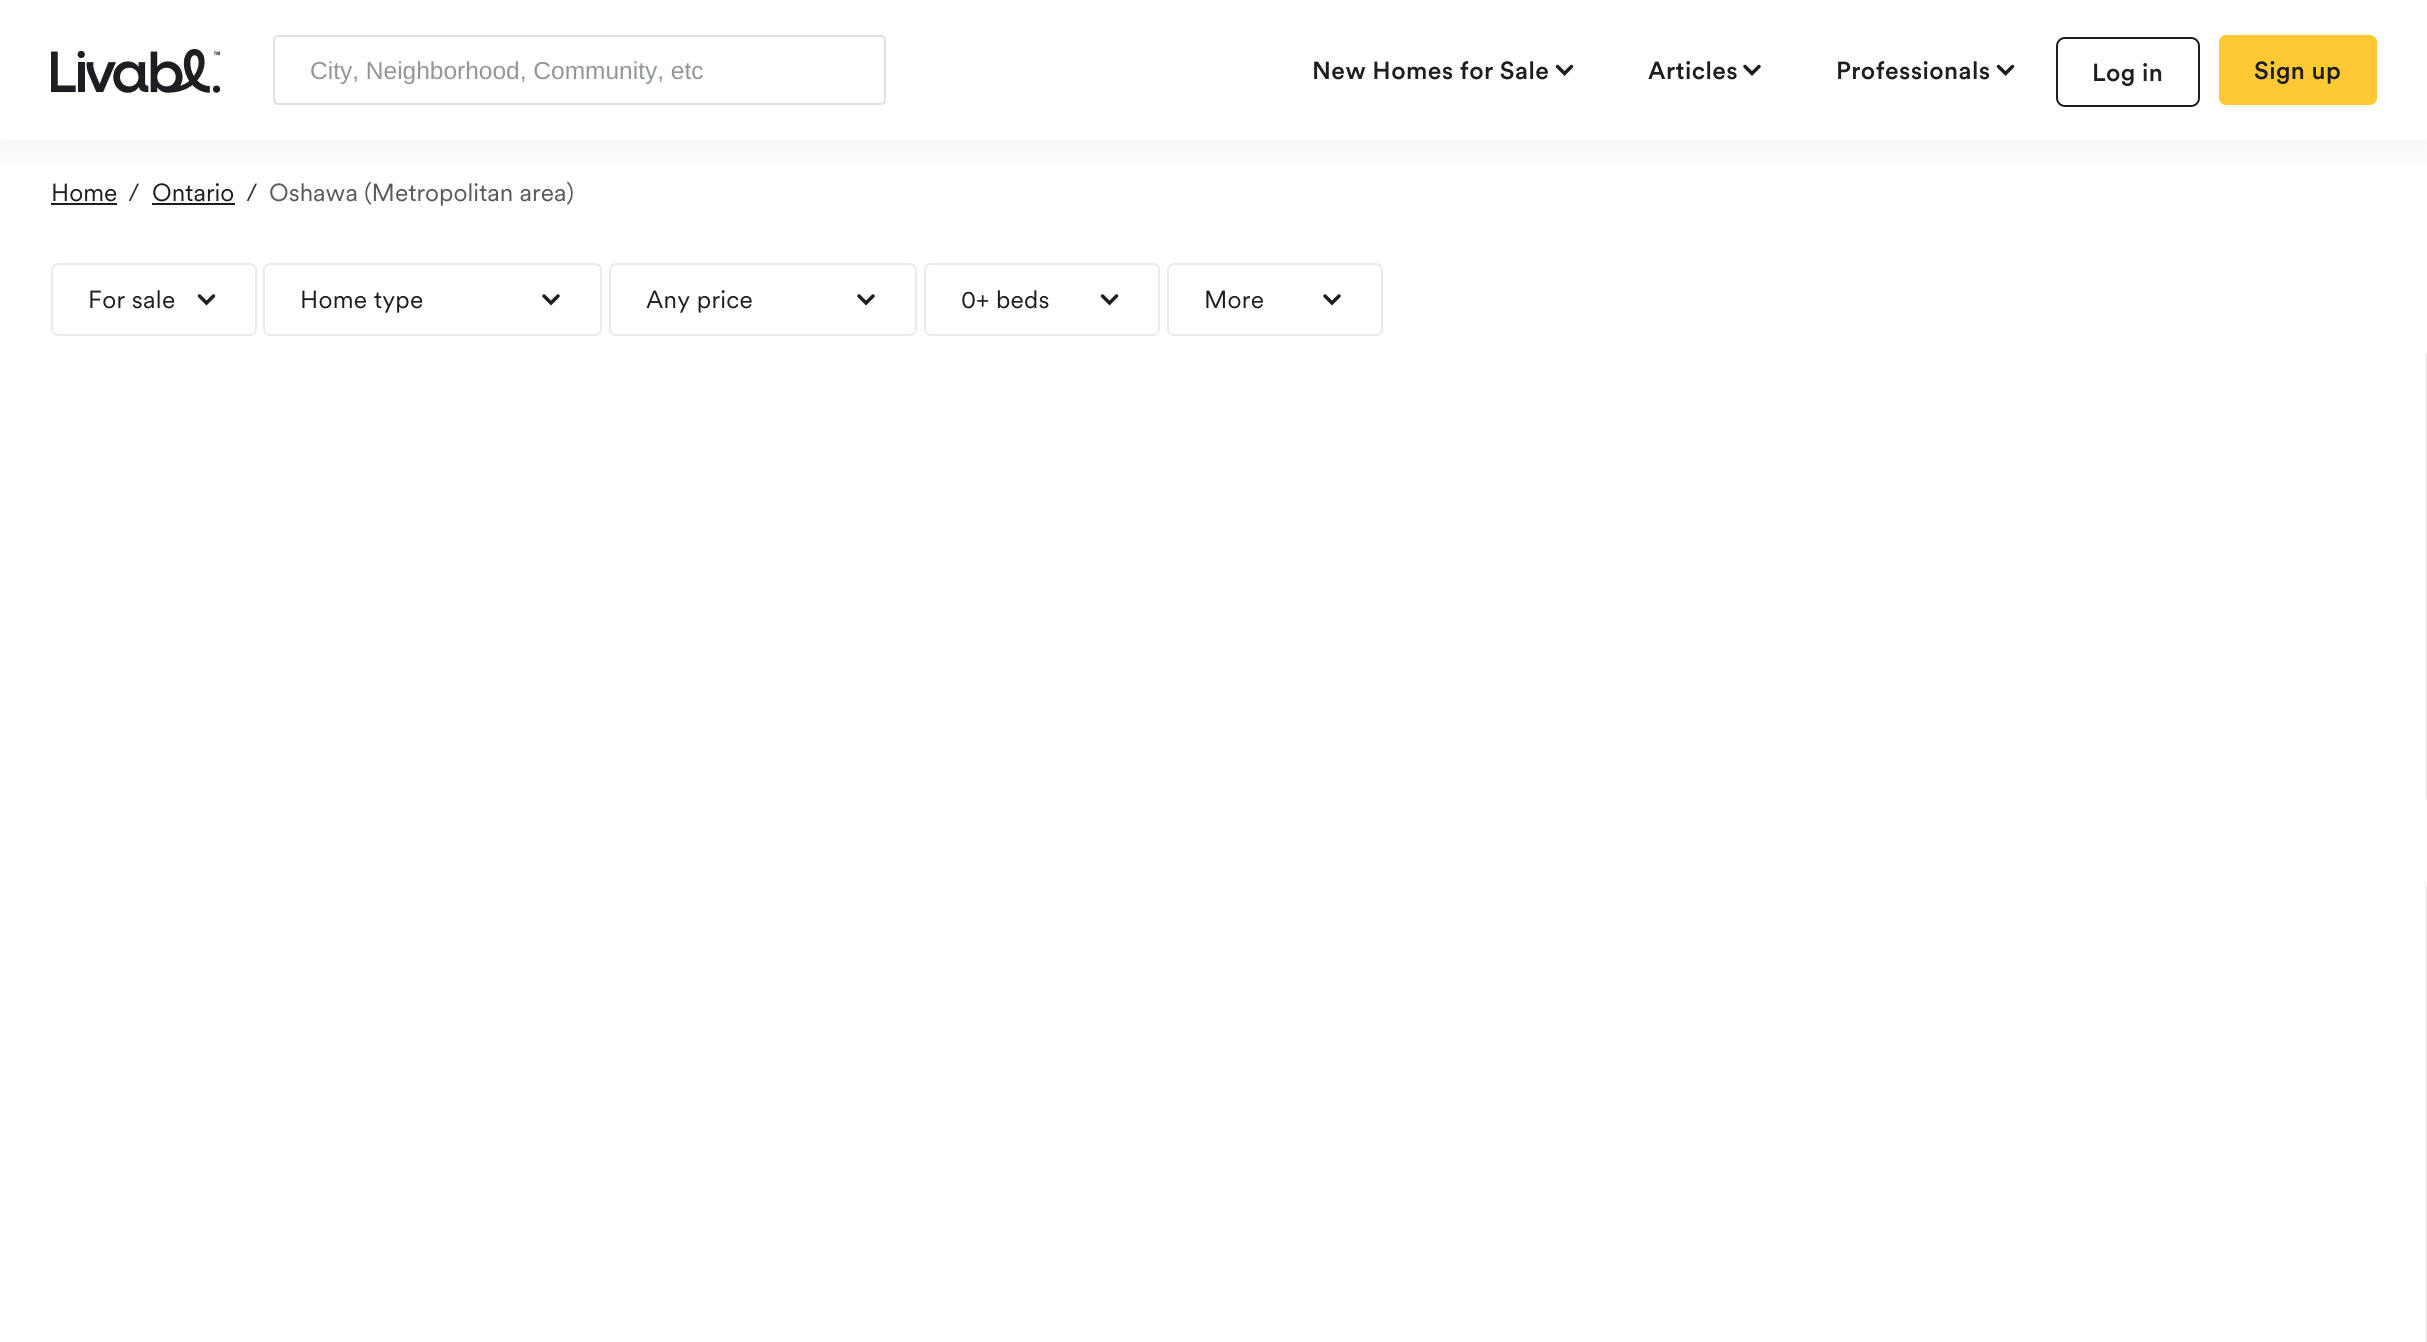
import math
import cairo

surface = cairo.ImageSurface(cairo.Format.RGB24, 2427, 1342)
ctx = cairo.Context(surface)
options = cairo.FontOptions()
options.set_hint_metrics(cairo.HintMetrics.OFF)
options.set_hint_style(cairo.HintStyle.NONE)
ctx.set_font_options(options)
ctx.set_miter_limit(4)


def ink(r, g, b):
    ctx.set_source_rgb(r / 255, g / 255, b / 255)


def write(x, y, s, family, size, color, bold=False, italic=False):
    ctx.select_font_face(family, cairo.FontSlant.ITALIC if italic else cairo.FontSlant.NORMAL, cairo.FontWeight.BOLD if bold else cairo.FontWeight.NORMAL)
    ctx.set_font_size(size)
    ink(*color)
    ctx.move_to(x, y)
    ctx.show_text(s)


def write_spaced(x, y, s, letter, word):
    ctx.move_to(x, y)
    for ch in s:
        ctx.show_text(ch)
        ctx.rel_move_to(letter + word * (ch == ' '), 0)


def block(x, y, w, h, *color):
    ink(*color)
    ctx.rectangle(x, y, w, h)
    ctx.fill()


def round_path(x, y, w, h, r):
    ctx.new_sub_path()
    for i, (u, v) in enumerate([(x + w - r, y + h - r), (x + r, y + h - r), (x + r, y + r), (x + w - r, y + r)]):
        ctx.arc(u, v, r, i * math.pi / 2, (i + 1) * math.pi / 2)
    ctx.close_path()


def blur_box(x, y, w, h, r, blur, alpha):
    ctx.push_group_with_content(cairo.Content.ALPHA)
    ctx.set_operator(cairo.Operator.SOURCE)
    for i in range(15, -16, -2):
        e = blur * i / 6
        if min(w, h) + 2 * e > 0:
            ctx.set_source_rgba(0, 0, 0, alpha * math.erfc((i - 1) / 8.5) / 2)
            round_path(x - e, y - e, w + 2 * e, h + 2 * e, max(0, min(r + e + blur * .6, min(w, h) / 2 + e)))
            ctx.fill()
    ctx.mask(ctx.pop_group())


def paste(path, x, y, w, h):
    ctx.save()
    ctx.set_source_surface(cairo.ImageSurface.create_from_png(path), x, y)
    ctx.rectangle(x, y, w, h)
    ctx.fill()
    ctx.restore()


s1 = dict(family="Liberation Sans", size=24.5, color=(146, 150, 154))
s2 = dict(family="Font", size=24.5, color=(30, 29, 33))
s3 = dict(family="Font", size=24.5, color=(51, 51, 51))
s4 = dict(family="Font", size=24.5, color=(89, 89, 89))

ink(255, 255, 255)
ctx.paint()
ink(0, 0, 0)
blur_box(0, 7, 2427, 140, 0, 15, 0.05)
block(0, 0, 2427, 140, 255, 255, 255)
round_path(274, 36, 611, 68, 4)
ink(223, 226, 229)
ctx.stroke()
write(310, 79, "City, Neighborhood, Community, etc", **s1)
paste("pic1.png", 51, 49, 169, 44)
ctx.select_font_face("Font Medium")
ink(30, 29, 33)
write_spaced(1312, 79, "New Homes for Sale", 0.4, 0)
ctx.new_path()
ctx.move_to(1557.5, 66.5)
ctx.line_to(1564.5, 73.5)
ctx.line_to(1571.5, 66.5)
ctx.set_line_width(3.5)
ctx.set_line_cap(cairo.LineCap.ROUND)
ctx.stroke()
write_spaced(1648, 79, "Articles", 0.4, 0)
ctx.new_path()
ctx.move_to(1745, 66.5)
ctx.line_to(1752, 73.5)
ctx.line_to(1759, 66.5)
ctx.stroke()
write_spaced(1836, 79, "Professionals", 0.4, 0)
ctx.new_path()
ctx.move_to(1998.5, 66.5)
ctx.line_to(2005.5, 73.5)
ctx.line_to(2012.5, 66.5)
ctx.stroke()
round_path(2057, 38, 142, 68, 8)
ctx.set_line_width(2)
ctx.set_line_cap(cairo.LineCap.BUTT)
ctx.stroke()
write_spaced(2092, 81, "Log in", 0.4, 0)
ink(255, 201, 51)
round_path(2219, 35, 158, 70, 7)
ctx.fill()
ink(30, 29, 33)
write_spaced(2254, 79, "Sign up", 0.4, 0)
write(51, 201, "Home", **s2)
block(51, 203, 66, 2, 30, 29, 33)
write(128, 201, "/", **s3)
write(152, 201, "Ontario", **s2)
block(152, 203, 83, 2, 30, 29, 33)
write(246, 201, "/", **s3)
write(269, 201, "Oshawa (Metropolitan area)", **s4)
round_path(52, 264, 204, 71, 6)
ink(235, 235, 235)
ctx.stroke()
ink(30, 29, 33)
write_spaced(88, 308, "For sale", 0.25, 0)
ctx.new_path()
ctx.move_to(199.5, 296)
ctx.line_to(206.5, 303)
ctx.line_to(213.5, 296)
ctx.set_line_width(3.5)
ctx.set_line_cap(cairo.LineCap.ROUND)
ctx.stroke()
round_path(264, 264, 337, 71, 6)
ink(235, 235, 235)
ctx.set_line_width(2)
ctx.set_line_cap(cairo.LineCap.BUTT)
ctx.stroke()
ink(30, 29, 33)
write_spaced(300, 308, "Home type", 0.25, 0)
ctx.new_path()
ctx.move_to(544, 296)
ctx.line_to(551, 303)
ctx.line_to(558, 296)
ctx.set_line_width(3.5)
ctx.set_line_cap(cairo.LineCap.ROUND)
ctx.stroke()
round_path(610, 264, 306, 71, 6)
ink(235, 235, 235)
ctx.set_line_width(2)
ctx.set_line_cap(cairo.LineCap.BUTT)
ctx.stroke()
ink(30, 29, 33)
write_spaced(646, 308, "Any price", 0.25, 0)
ctx.new_path()
ctx.move_to(859, 296)
ctx.line_to(866, 303)
ctx.line_to(873, 296)
ctx.set_line_width(3.5)
ctx.set_line_cap(cairo.LineCap.ROUND)
ctx.stroke()
round_path(925, 264, 234, 71, 6)
ink(235, 235, 235)
ctx.set_line_width(2)
ctx.set_line_cap(cairo.LineCap.BUTT)
ctx.stroke()
ink(30, 29, 33)
write_spaced(961, 308, "0+ beds", 0.25, 0)
ctx.new_path()
ctx.move_to(1102.5, 296)
ctx.line_to(1109.5, 303)
ctx.line_to(1116.5, 296)
ctx.set_line_width(3.5)
ctx.set_line_cap(cairo.LineCap.ROUND)
ctx.stroke()
round_path(1168, 264, 214, 71, 6)
ink(235, 235, 235)
ctx.set_line_width(2)
ctx.set_line_cap(cairo.LineCap.BUTT)
ctx.stroke()
ink(30, 29, 33)
write_spaced(1204, 308, "More", 0.25, 0)
ctx.new_path()
ctx.move_to(1325, 296)
ctx.line_to(1332, 303)
ctx.line_to(1339, 296)
ctx.set_line_width(3.5)
ctx.set_line_cap(cairo.LineCap.ROUND)
ctx.stroke()
block(2426, 354, 1, 988, 223, 226, 229)
block(2426, 798, 1, 88, 250, 250, 250)
surface.write_to_png("screenshot.png")
